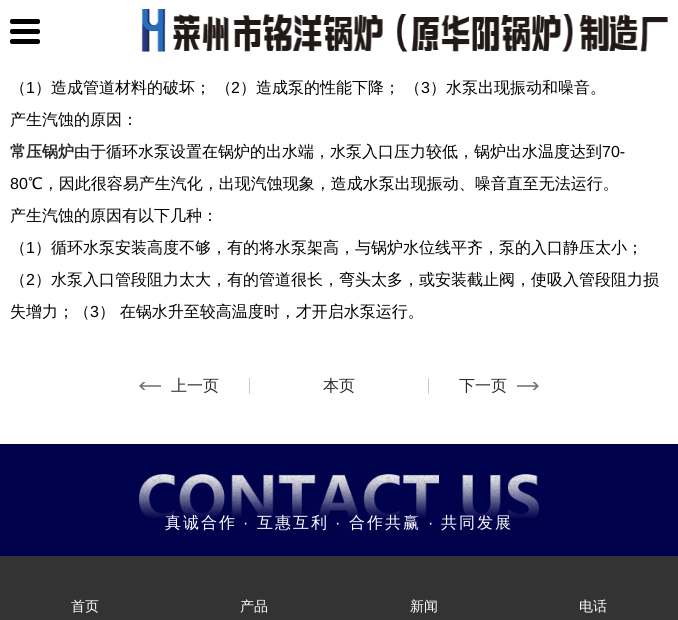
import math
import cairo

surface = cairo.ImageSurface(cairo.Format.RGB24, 678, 620)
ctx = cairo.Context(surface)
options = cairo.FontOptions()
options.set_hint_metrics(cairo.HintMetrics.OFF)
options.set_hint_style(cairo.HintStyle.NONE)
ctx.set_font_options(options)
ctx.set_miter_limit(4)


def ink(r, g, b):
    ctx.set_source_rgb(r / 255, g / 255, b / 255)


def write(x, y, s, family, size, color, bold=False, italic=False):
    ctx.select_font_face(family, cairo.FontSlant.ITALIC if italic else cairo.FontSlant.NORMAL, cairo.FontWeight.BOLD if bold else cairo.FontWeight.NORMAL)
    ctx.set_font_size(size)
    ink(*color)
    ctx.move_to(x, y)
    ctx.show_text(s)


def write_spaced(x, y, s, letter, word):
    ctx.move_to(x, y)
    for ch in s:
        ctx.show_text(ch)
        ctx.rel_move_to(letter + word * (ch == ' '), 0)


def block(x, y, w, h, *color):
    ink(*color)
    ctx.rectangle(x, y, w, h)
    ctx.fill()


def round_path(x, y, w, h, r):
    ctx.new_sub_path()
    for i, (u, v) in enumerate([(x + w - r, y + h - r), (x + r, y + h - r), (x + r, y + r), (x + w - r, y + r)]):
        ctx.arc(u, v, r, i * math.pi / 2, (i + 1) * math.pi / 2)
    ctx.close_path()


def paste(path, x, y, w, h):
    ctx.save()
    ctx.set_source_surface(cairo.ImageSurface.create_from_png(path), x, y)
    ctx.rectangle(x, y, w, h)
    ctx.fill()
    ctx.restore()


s1 = dict(family="WenQuanYi Zen Hei Medium", size=16, color=(0, 0, 0))
s2 = dict(family="Liberation Sans", size=16, color=(0, 0, 0))
s3 = dict(family="WenQuanYi Zen Hei", size=16, color=(43, 43, 43), bold=True)
s4 = dict(family="WenQuanYi Zen Hei Medium", size=16, color=(43, 43, 43))
s5 = dict(family="WenQuanYi Zen Hei Medium", size=14, color=(255, 255, 255))

ink(255, 255, 255)
ctx.paint()
ink(0, 0, 0)
round_path(10, 19, 30, 5, 2)
ctx.fill()
round_path(10, 29, 30, 5, 2)
ctx.fill()
round_path(10, 39, 30, 5, 2)
ctx.fill()
paste("pic1.png", 141, 9, 527, 43)
write(10, 93, "（", **s1)
write(26, 93, "1", **s2)
write(35, 93, "）造成管道材料的破坏； （", **s1)
write(231, 93, "2", **s2)
write(240, 93, "）造成泵的性能下降； （", **s1)
write(421, 93, "3", **s2)
write(430, 93, "）水泵出现振动和噪音。", **s1)
write(10, 125, "产生汽蚀的原因：", **s1)
write(10, 157, "常压锅炉", **s3)
write(74, 157, "由于循环水泵设置在锅炉的出水端，水泵入口压力较低，锅炉出水温度达到", **s1)
write(602, 157, "70-", **s2)
write(10, 189, "80", **s2)
write(28, 189, "℃，因此很容易产生汽化，出现汽蚀现象，造成水泵出现振动、噪音直至无法运行。", **s1)
write(10, 221, "产生汽蚀的原因有以下几种：", **s1)
write(10, 253, "（", **s1)
write(26, 253, "1", **s2)
write(35, 253, "）循环水泵安装高度不够，有的将水泵架高，与锅炉水位线平齐，泵的入口静压太小；", **s1)
write(10, 285, "（", **s1)
write(26, 285, "2", **s2)
write(35, 285, "）水泵入口管段阻力太大，有的管道很长，弯头太多，或安装截止阀，使吸入管段阻力损", **s1)
write(10, 317, "失增力；（", **s1)
write(90, 317, "3", **s2)
write(99, 317, "） 在锅水升至较高温度时，才开启水泵运行。", **s1)
paste("pic2.png", 139, 382, 22, 8)
write(171, 391, "上一页", **s4)
block(428, 378, 1, 16, 204, 204, 204)
block(249, 378, 1, 16, 204, 204, 204)
write(323, 391, "本页", **s4)
write(459, 391, "下一页", **s4)
paste("pic3.png", 517, 382, 22, 8)
block(0, 444, 678, 112, 0, 2, 76)
paste("pic4.png", 139, 474, 400, 44)
ink(255, 255, 255)
write_spaced(165, 528, "真诚合作", 2, 0)
ctx.select_font_face("Liberation Sans")
write_spaced(243, 528, "·", 2, 0)
ctx.select_font_face("WenQuanYi Zen Hei Medium")
write_spaced(257, 528, "互惠互利", 2, 0)
ctx.select_font_face("Liberation Sans")
write_spaced(335, 528, "·", 2, 0)
ctx.select_font_face("WenQuanYi Zen Hei Medium")
write_spaced(349, 528, "合作共赢", 2, 0)
ctx.select_font_face("Liberation Sans")
write_spaced(428, 528, "·", 2, 0)
ctx.select_font_face("WenQuanYi Zen Hei Medium")
write_spaced(441, 528, "共同发展", 2, 0)
block(0, 556, 678, 64, 51, 51, 51)
write(71, 611, "首页", **s5)
write(240, 611, "产品", **s5)
write(410, 611, "新闻", **s5)
write(579, 611, "电话", **s5)
surface.write_to_png("screenshot.png")
